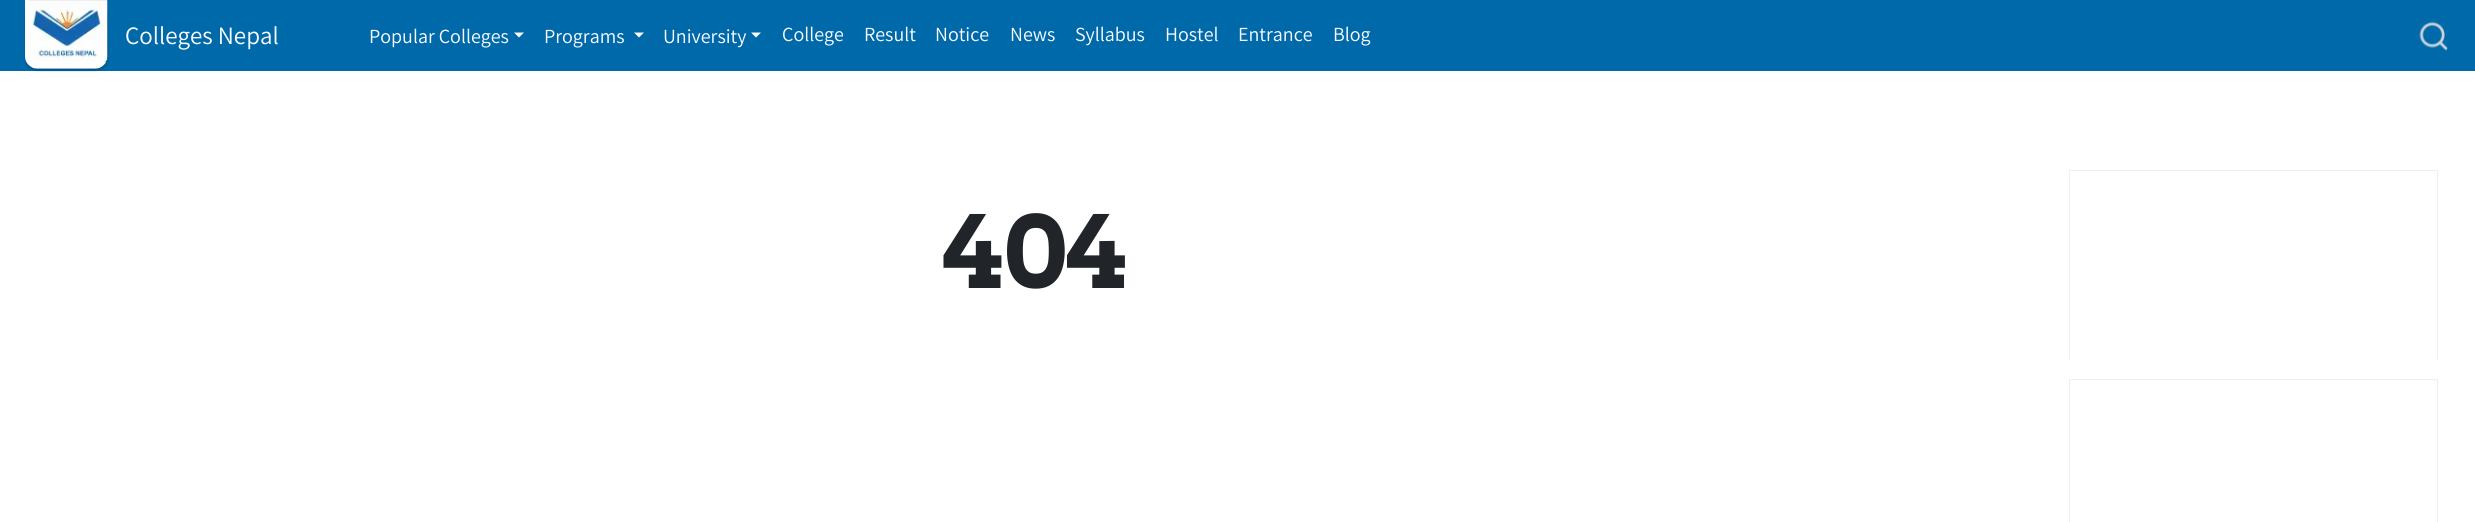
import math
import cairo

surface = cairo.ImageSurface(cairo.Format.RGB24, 2475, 522)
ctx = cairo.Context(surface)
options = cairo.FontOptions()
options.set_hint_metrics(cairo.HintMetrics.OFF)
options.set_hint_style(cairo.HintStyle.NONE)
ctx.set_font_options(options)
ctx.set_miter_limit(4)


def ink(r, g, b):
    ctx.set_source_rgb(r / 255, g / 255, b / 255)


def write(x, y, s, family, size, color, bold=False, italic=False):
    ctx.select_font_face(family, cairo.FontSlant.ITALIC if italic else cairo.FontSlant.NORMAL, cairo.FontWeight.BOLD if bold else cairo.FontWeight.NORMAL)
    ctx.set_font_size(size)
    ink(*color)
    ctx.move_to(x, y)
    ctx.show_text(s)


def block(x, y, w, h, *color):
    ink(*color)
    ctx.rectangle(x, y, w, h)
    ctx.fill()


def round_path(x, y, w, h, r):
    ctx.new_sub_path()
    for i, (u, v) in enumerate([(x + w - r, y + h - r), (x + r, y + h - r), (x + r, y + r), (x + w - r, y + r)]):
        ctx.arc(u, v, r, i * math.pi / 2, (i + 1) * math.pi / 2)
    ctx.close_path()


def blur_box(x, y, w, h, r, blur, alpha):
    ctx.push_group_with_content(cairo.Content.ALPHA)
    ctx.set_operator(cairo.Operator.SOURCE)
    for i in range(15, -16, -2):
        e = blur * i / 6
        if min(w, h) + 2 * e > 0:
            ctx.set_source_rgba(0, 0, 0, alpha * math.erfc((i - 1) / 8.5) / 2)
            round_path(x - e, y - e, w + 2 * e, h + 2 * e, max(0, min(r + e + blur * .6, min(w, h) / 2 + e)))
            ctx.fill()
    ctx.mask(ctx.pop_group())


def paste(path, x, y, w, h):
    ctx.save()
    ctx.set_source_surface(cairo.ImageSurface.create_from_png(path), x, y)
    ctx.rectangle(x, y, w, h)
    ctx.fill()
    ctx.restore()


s1 = dict(family="Assistant", size=25, color=(255, 255, 255))
s2 = dict(family="Assistant", size=20, color=(255, 255, 255))
s3 = dict(family="Arvo", size=100, color=(33, 37, 41), bold=True)

ink(255, 255, 255)
ctx.paint()
block(0, 0, 2475, 71, 0, 105, 170)
ink(0, 0, 0)
blur_box(25, 3, 83, 68, 13, 1, 0.2)
paste("pic1.png", 25, 0, 83, 69)
write(125, 44, "Colleges Nepal", **s1)
write(369, 43, "Popular Colleges", **s2)
ctx.new_path()
ctx.move_to(514, 32.5)
ctx.line_to(524, 32.5)
ctx.line_to(519, 37.5)
ctx.close_path()
ctx.fill()
write(544, 43, "Programs", **s2)
ctx.new_path()
ctx.move_to(634, 32.5)
ctx.line_to(644, 32.5)
ctx.line_to(639, 37.5)
ctx.close_path()
ctx.fill()
write(663, 43, "University", **s2)
ctx.new_path()
ctx.move_to(751, 32.5)
ctx.line_to(761, 32.5)
ctx.line_to(756, 37.5)
ctx.close_path()
ctx.fill()
write(782, 41, "College", **s2)
write(864, 41, "Result", **s2)
write(935, 41, "Notice", **s2)
write(1010, 41, "News", **s2)
write(1075, 41, "Syllabus", **s2)
write(1165, 41, "Hostel", **s2)
write(1238, 41, "Entrance", **s2)
write(1333, 41, "Blog", **s2)
paste("pic2.png", 2419, 21, 29, 30)
write(943, 288, "404", **s3)
ctx.save()
ctx.rectangle(2069, 170, 369, 189)
ctx.clip()
ctx.rectangle(2069.5, 170.5, 368, 202)
ink(239, 239, 239)
ctx.set_line_width(1)
ctx.stroke()
ctx.restore()
ctx.rectangle(2069.5, 379.5, 368, 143)
ink(239, 239, 239)
ctx.set_line_width(1)
ctx.stroke()
surface.write_to_png("screenshot.png")
